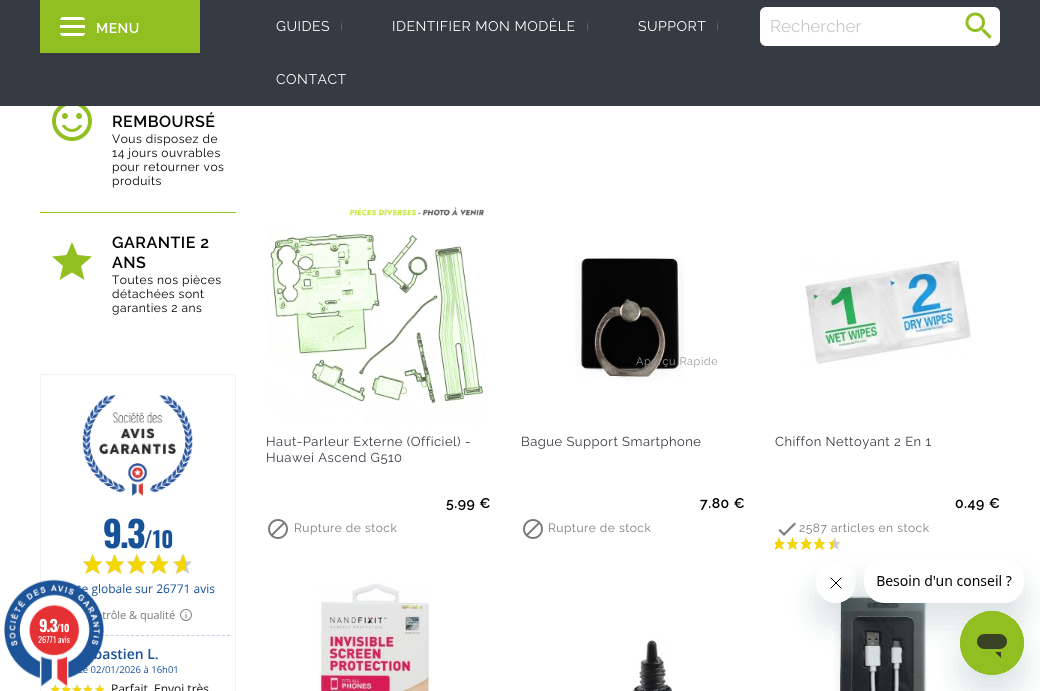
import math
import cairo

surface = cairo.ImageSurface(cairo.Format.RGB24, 1040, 691)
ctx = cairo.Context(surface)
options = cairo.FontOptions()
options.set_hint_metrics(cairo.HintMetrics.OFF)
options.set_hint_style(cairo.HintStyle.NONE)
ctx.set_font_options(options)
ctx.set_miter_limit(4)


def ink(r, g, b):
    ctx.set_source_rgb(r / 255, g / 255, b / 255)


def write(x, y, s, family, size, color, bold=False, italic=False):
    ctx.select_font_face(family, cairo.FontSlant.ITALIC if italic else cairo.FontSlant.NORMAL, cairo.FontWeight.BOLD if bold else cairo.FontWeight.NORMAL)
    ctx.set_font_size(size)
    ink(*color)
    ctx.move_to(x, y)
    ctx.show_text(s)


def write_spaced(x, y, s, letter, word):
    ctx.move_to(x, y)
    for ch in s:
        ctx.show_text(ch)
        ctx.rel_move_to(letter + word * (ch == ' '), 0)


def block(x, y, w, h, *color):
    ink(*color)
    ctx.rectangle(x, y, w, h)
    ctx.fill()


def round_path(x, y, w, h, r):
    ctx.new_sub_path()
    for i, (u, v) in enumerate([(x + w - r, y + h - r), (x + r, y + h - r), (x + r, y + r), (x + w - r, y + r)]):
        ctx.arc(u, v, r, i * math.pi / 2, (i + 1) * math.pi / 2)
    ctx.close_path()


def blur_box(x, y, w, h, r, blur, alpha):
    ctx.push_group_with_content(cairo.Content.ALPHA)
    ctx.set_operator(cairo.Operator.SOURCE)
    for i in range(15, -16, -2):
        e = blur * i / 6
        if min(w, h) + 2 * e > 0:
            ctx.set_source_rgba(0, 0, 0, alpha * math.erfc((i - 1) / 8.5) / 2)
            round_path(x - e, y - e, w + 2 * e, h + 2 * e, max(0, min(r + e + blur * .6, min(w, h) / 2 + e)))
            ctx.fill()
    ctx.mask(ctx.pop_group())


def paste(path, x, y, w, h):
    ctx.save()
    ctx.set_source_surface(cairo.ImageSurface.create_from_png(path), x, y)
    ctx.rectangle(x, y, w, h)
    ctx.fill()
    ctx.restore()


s1 = dict(family="Raleway", size=17, color=(200, 200, 200))
s2 = dict(family="Oswald", size=10, color=(255, 255, 255), bold=True)
s3 = dict(family="Oswald", size=8.5, color=(255, 255, 255))

ink(255, 255, 255)
ctx.paint()
block(0, 0, 1040, 106, 54, 58, 66)
block(40, 0, 160, 53, 145, 190, 33)
ink(255, 255, 255)
ctx.new_path()
ctx.move_to(63, 17)
ctx.line_to(82, 17)
ctx.curve_to(83.5, 17, 85, 18.5, 85, 20)
ctx.line_to(60, 20)
ctx.curve_to(60, 18.5, 61.5, 17, 63, 17)
ctx.close_path()
ctx.fill()
block(60, 25, 25, 3, 255, 255, 255)
ctx.new_path()
ctx.move_to(60, 33)
ctx.line_to(85, 33)
ctx.curve_to(85, 34.5, 83.5, 36, 82, 36)
ctx.line_to(63, 36)
ctx.curve_to(61.5, 36, 60, 34.5, 60, 33)
ctx.close_path()
ctx.fill()
ctx.select_font_face("Raleway SemiBold")
ctx.set_font_size(14)
write_spaced(96, 33, "MENU", 0.5, 0)
paste("pic1.png", 341, 21, 1, 11)
ctx.select_font_face("Raleway")
write_spaced(276, 31, "GUIDES", 0.5, 0)
paste("pic1.png", 587, 21, 1, 11)
write_spaced(392, 31, "IDENTIFIER MON MODÈLE", 0.5, 0)
paste("pic1.png", 717, 21, 1, 11)
write_spaced(638, 31, "SUPPORT", 0.5, 0)
write_spaced(276, 84, "CONTACT", 0.5, 0)
round_path(760, 7, 240, 39, 6)
ctx.fill()
write(770, 32, "Rechercher", **s1)
paste("pic2.png", 965, 12, 27, 27)
block(40, 212, 196, 1, 145, 190, 33)
paste("pic3.png", 52, 106, 40, 35)
ctx.select_font_face("Raleway SemiBold")
ctx.set_font_size(16)
ink(0, 0, 0)
write_spaced(112, 127, "REMBOURSÉ", 0.5, 0)
ctx.select_font_face("Raleway")
ctx.set_font_size(12)
write_spaced(112, 143, "Vous disposez de", 0.5, 0)
write_spaced(112, 157, "14 jours ouvrables", 0.5, 0)
write_spaced(112, 171, "pour retourner vos", 0.5, 0)
write_spaced(112, 185, "produits", 0.5, 0)
ink(145, 190, 33)
ctx.new_path()
ctx.move_to(72, 272.5)
ctx.line_to(59.5, 280)
ctx.line_to(63, 266)
ctx.line_to(52, 256.5)
ctx.line_to(66.5, 255)
ctx.line_to(72, 242)
ctx.line_to(77.5, 255)
ctx.line_to(92, 256.5)
ctx.line_to(81, 266)
ctx.line_to(84.5, 280)
ctx.close_path()
ctx.fill()
ctx.select_font_face("Raleway SemiBold")
ctx.set_font_size(16)
ink(0, 0, 0)
write_spaced(112, 248, "GARANTIE 2", 0.5, 0)
write_spaced(112, 268, "ANS", 0.5, 0)
ctx.select_font_face("Raleway")
ctx.set_font_size(12)
write_spaced(112, 284, "Toutes nos pièces", 0.5, 0)
write_spaced(112, 298, "détachées sont", 0.5, 0)
write_spaced(112, 312, "garanties 2 ans", 0.5, 0)
ctx.rectangle(40.5, 374.5, 195, 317)
ink(242, 242, 242)
ctx.set_line_width(1)
ctx.stroke()
paste("pic4.png", 50, 395, 180, 296)
paste("pic5.png", 267, 207, 219, 218)
ctx.set_font_size(13)
ink(54, 58, 66)
write_spaced(266, 446, "Haut-Parleur Externe (Officiel) -", 0.5, 0)
write_spaced(266, 462, "Huawei Ascend G510", 0.5, 0)
ctx.select_font_face("Raleway SemiBold")
ctx.set_font_size(14)
ink(0, 0, 0)
write_spaced(446, 508, "5.99 €", 0.5, 0)
paste("pic6.png", 268, 519, 20, 20)
ctx.select_font_face("Raleway")
ctx.set_font_size(12)
ink(122, 122, 122)
write_spaced(294, 532, "Rupture de stock", 0.5, 0)
paste("pic7.png", 575, 256, 109, 125)
ctx.set_font_size(11)
ink(156, 155, 154)
write_spaced(636, 365, "Aperçu Rapide", 0.5, 0)
ctx.set_font_size(13)
ink(54, 58, 66)
write_spaced(521, 446, "Bague Support Smartphone", 0.5, 0)
ctx.select_font_face("Raleway SemiBold")
ctx.set_font_size(14)
ink(0, 0, 0)
write_spaced(700, 508, "7.80 €", 0.5, 0)
paste("pic6.png", 523, 519, 20, 20)
ctx.select_font_face("Raleway")
ctx.set_font_size(12)
ink(122, 122, 122)
write_spaced(548, 532, "Rupture de stock", 0.5, 0)
paste("pic8.png", 803, 260, 168, 104)
ctx.set_font_size(13)
ink(54, 58, 66)
write_spaced(775, 446, "Chiffon Nettoyant 2 En 1", 0.5, 0)
ctx.select_font_face("Raleway SemiBold")
ctx.set_font_size(14)
ink(0, 0, 0)
write_spaced(955, 508, "0.49 €", 0.5, 0)
ink(122, 122, 122)
ctx.new_path()
ctx.move_to(784, 533)
ctx.line_to(794.5, 522.5)
ctx.line_to(796, 524)
ctx.line_to(784, 536)
ctx.line_to(778.5, 530.5)
ctx.line_to(780, 529)
ctx.close_path()
ctx.fill()
ctx.select_font_face("Raleway")
ctx.set_font_size(12)
write_spaced(799, 532, "2587 articles en stock", 0.5, 0)
paste("pic9.png", 775, 537, 66, 13)
paste("pic10.png", 775, 537, 58, 13)
paste("pic11.png", 318, 583, 113, 108)
paste("pic12.png", 632, 639, 40, 52)
paste("pic13.png", 834, 580, 93, 111)
paste("pic14.png", 4, 579, 100, 109)
ctx.select_font_face("Oswald", cairo.FontSlant.NORMAL, cairo.FontWeight.BOLD)
ctx.set_font_size(16)
ink(255, 255, 255)
write_spaced(39, 632, "9.3", -1, 0)
write(56, 632, "/10", **s2)
write(38, 643, "26771 avis", **s3)
ctx.save()
ctx.set_fill_rule(cairo.FillRule.EVEN_ODD)
ctx.new_path()
ctx.move_to(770, 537)
ctx.line_to(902, 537)
ctx.line_to(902, 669)
ctx.line_to(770, 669)
ctx.close_path()
ctx.move_to(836, 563)
ctx.curve_to(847, 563, 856, 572, 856, 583)
ctx.curve_to(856, 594, 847, 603, 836, 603)
ctx.curve_to(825, 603, 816, 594, 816, 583)
ctx.curve_to(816, 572, 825, 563, 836, 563)
ctx.close_path()
ctx.clip()
ink(23, 73, 77)
blur_box(816, 583, 40, 40, 20, 15, 0.15)
ctx.restore()
paste("pic16.png", 830, 577, 22, 26)
ctx.save()
ctx.set_fill_rule(cairo.FillRule.EVEN_ODD)
ctx.new_path()
ctx.move_to(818, 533)
ctx.line_to(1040, 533)
ctx.line_to(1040, 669)
ctx.line_to(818, 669)
ctx.close_path()
ctx.move_to(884, 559)
ctx.line_to(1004, 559)
ctx.curve_to(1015, 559, 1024, 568, 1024, 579)
ctx.line_to(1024, 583)
ctx.curve_to(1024, 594, 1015, 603, 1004, 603)
ctx.line_to(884, 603)
ctx.curve_to(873, 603, 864, 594, 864, 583)
ctx.line_to(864, 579)
ctx.curve_to(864, 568, 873, 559, 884, 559)
ctx.close_path()
ctx.clip()
ink(23, 73, 77)
blur_box(864, 579, 160, 44, 20, 15, 0.15)
ctx.restore()
paste("pic15.png", 864, 575, 154, 28)
ink(23, 73, 77)
blur_box(960, 631, 64, 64, 32, 15, 0.15)
paste("pic17.png", 960, 611, 64, 64)
surface.write_to_png("screenshot.png")
